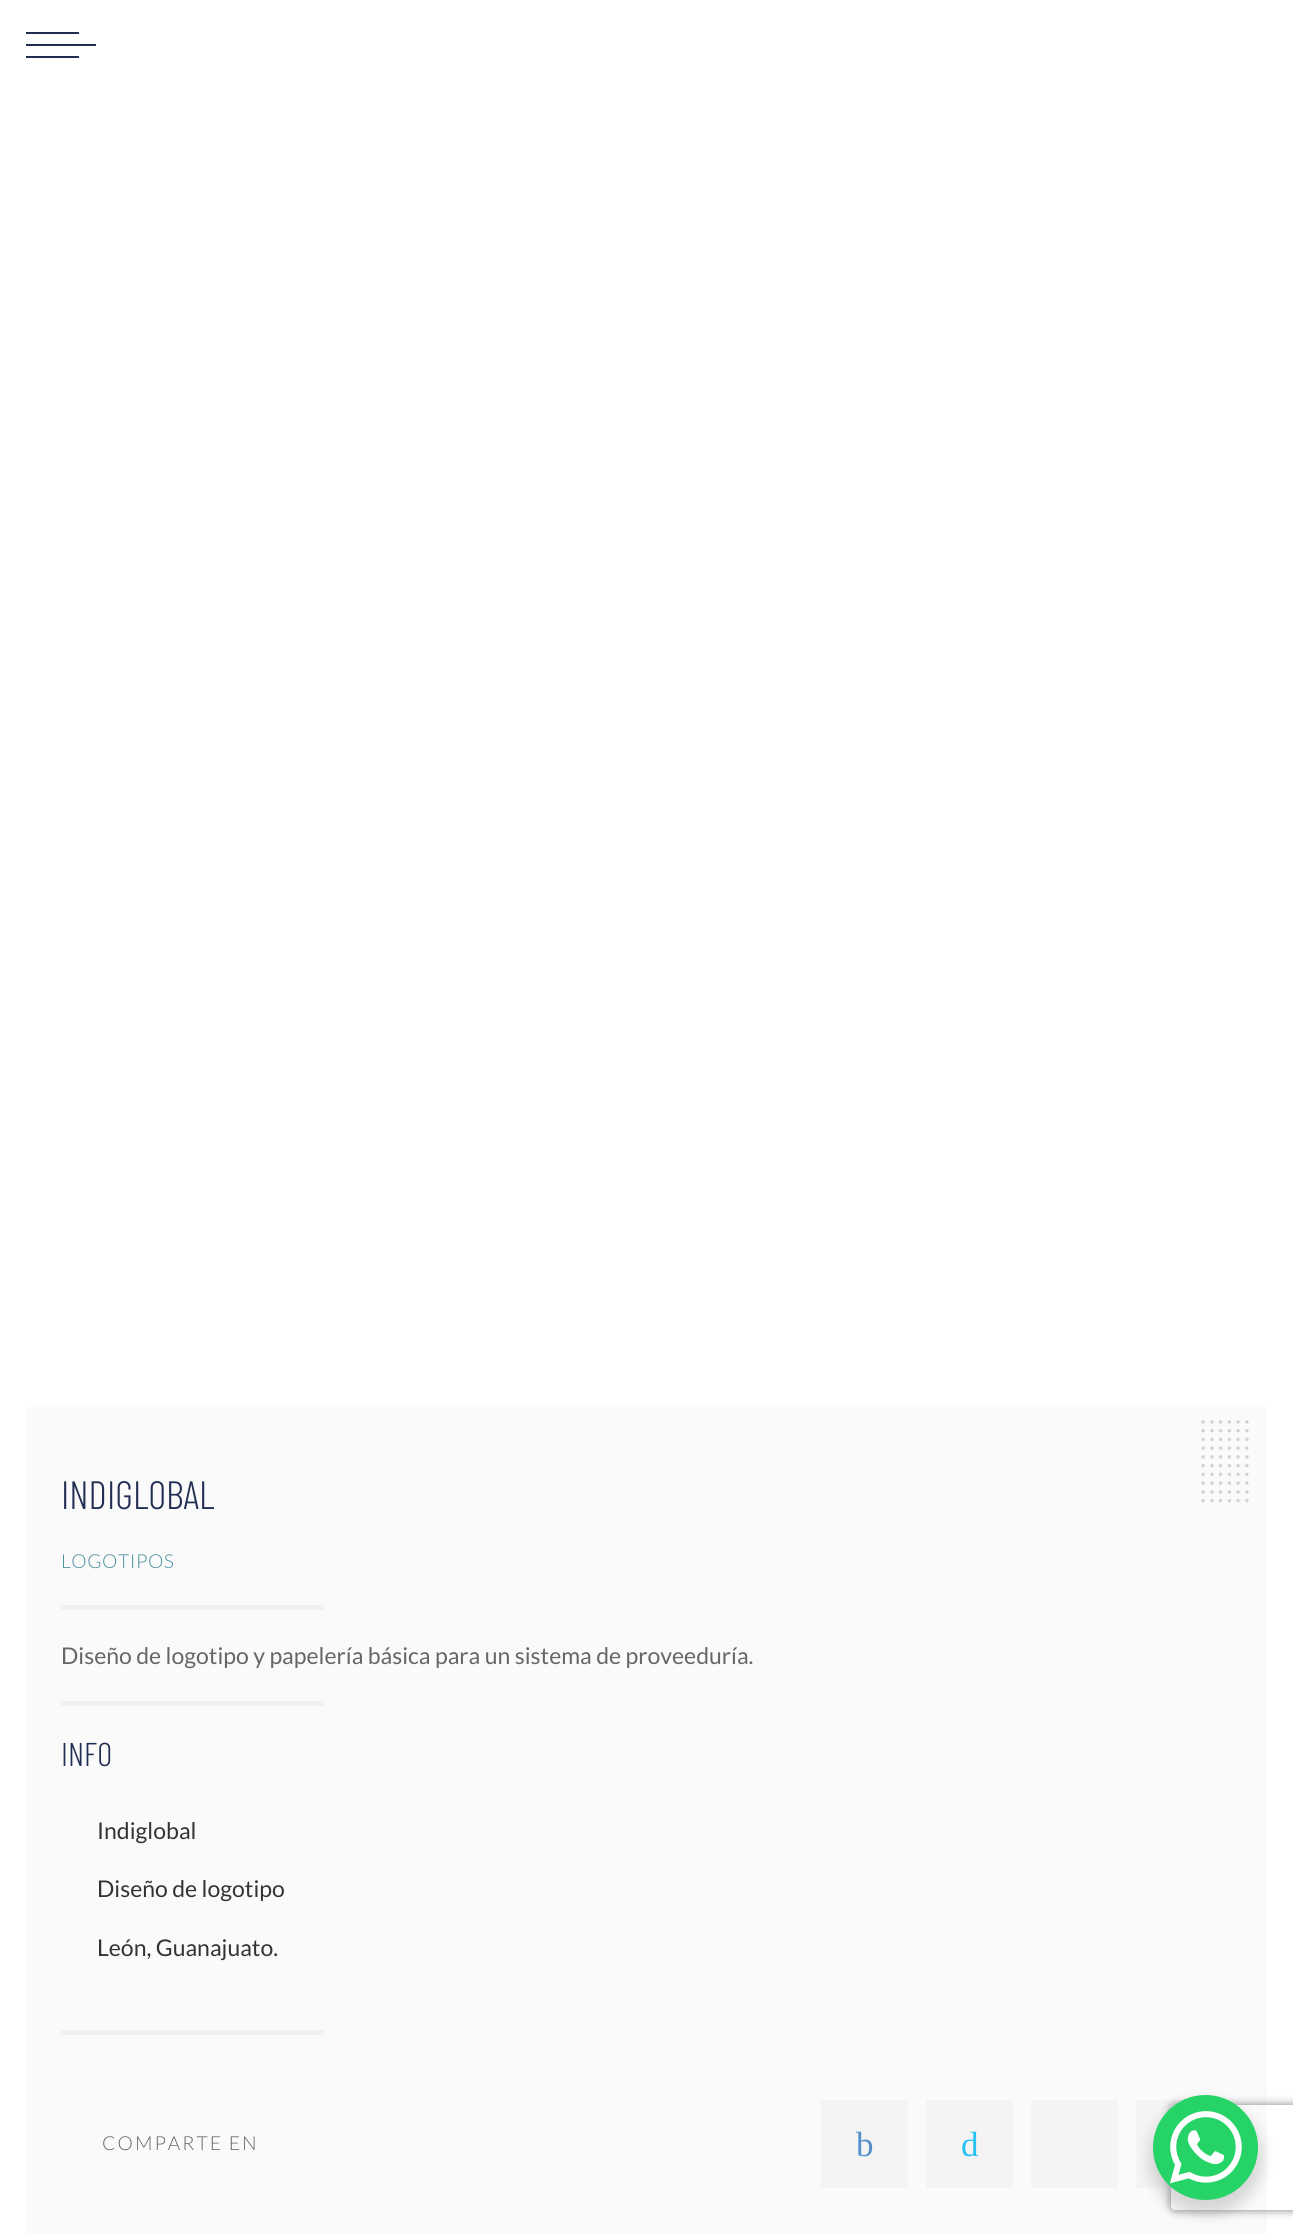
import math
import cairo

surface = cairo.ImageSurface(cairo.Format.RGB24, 1293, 2234)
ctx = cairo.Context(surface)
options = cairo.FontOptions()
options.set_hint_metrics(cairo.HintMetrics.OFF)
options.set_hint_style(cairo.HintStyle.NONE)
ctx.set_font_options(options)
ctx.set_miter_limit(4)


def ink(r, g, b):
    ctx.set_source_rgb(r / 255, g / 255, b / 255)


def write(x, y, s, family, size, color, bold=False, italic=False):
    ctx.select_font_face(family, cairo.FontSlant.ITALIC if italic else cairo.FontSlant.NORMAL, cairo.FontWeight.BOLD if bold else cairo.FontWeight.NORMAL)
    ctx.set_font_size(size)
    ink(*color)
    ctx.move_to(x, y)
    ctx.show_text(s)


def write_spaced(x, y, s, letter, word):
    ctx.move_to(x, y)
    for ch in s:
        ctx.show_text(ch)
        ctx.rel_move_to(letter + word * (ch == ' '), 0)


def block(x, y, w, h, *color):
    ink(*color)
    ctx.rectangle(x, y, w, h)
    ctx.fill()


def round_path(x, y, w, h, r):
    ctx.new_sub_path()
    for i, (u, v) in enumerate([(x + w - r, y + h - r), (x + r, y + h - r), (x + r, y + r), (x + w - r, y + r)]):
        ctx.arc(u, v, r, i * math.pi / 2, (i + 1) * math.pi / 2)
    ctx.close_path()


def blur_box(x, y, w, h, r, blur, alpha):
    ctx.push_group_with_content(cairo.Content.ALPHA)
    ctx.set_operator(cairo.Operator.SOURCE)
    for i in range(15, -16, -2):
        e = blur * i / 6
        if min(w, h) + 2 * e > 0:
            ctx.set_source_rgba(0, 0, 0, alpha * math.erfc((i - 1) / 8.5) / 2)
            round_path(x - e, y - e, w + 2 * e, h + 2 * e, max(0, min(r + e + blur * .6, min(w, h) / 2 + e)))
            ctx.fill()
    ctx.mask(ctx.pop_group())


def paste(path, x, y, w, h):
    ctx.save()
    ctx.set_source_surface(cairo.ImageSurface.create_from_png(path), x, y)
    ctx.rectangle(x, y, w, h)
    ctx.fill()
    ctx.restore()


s1 = dict(family="Barlow Condensed Light", size=39.5, color=(33, 46, 83))
s2 = dict(family="Lato", size=23, color=(102, 102, 102))
s3 = dict(family="Barlow Condensed Light", size=33, color=(33, 46, 83))
s4 = dict(family="Lato", size=23, color=(51, 51, 51))
s5 = dict(family="Liberation Serif", size=35, color=(86, 143, 206))
s6 = dict(family="Liberation Serif", size=35, color=(39, 194, 245))

ink(255, 255, 255)
ctx.paint()
block(26, 44, 70, 2, 33, 46, 83)
block(26, 32, 53, 2, 33, 46, 83)
block(26, 56, 53, 2, 33, 46, 83)
block(26, 1407, 1241, 827, 250, 250, 250)
write(61, 1509, "INDIGLOBAL", **s1)
ctx.new_path()
ctx.move_to(1203.1, 1421.9)
ctx.line_to(1203.1, 1501)
ink(210, 210, 210)
ctx.set_line_width(3.5)
ctx.set_line_cap(cairo.LineCap.ROUND)
ctx.set_dash([0, 8.75])
ctx.stroke()
ctx.new_path()
ctx.move_to(1211.9, 1421.9)
ctx.line_to(1211.9, 1501)
ctx.stroke()
ctx.new_path()
ctx.move_to(1220.6, 1421.9)
ctx.line_to(1220.6, 1501)
ctx.stroke()
ctx.new_path()
ctx.move_to(1229.4, 1421.9)
ctx.line_to(1229.4, 1501)
ctx.stroke()
ctx.new_path()
ctx.move_to(1238.1, 1421.9)
ctx.line_to(1238.1, 1501)
ctx.stroke()
ctx.new_path()
ctx.move_to(1246.9, 1421.9)
ctx.line_to(1246.9, 1501)
ctx.stroke()
ctx.select_font_face("Lato Light")
ctx.set_font_size(19.25)
ink(74, 145, 158)
write_spaced(61, 1568, "LOGOTIPOS", 0.5, 0)
block(61, 1605, 263, 5, 241, 241, 241)
write(61, 1664, "Diseño de logotipo y papelería básica para un sistema de proveeduría.", **s2)
block(61, 1701, 263, 5, 241, 241, 241)
write(61, 1766, "INFO", **s3)
write(97, 1839, "Indiglobal", **s4)
write(97, 1897, "Diseño de logotipo", **s4)
write(97, 1956, "León, Guanajuato.", **s4)
block(61, 2030, 263, 5, 241, 241, 241)
ctx.select_font_face("Lato Light")
ctx.set_font_size(19.25)
ink(102, 102, 102)
write_spaced(102, 2150, "COMPARTE EN", 2, 0)
block(821, 2100, 87, 88, 244, 244, 244)
write(856, 2156, "b", **s5)
block(926, 2100, 87, 88, 244, 244, 244)
write(961, 2156, "d", **s6)
block(1031, 2100, 87, 88, 244, 244, 244)
block(1136, 2100, 48, 88, 244, 244, 244)
ink(0, 0, 0)
blur_box(1150, 2102, 112, 112, 56, 7, 0.15)
ctx.save()
ctx.set_fill_rule(cairo.FillRule.EVEN_ODD)
ctx.new_path()
ctx.move_to(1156, 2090)
ctx.line_to(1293, 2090)
ctx.line_to(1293, 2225)
ctx.line_to(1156, 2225)
ctx.close_path()
ctx.move_to(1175, 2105)
ctx.line_to(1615, 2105)
ctx.curve_to(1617, 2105, 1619, 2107, 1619, 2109)
ctx.line_to(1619, 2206)
ctx.curve_to(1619, 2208, 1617, 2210, 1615, 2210)
ctx.line_to(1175, 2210)
ctx.curve_to(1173, 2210, 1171, 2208, 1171, 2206)
ctx.line_to(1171, 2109)
ctx.curve_to(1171, 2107, 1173, 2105, 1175, 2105)
ctx.close_path()
ctx.clip()
ink(128, 128, 128)
blur_box(1171, 2105, 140, 105, 4, 4.5, 1)
ctx.restore()
ink(37, 211, 102)
ctx.arc(1205.5, 2147.5, 52.5, 0, 2 * math.pi)
ctx.fill()
paste("pic1.png", 1170, 2111, 72, 73)
surface.write_to_png("screenshot.png")
